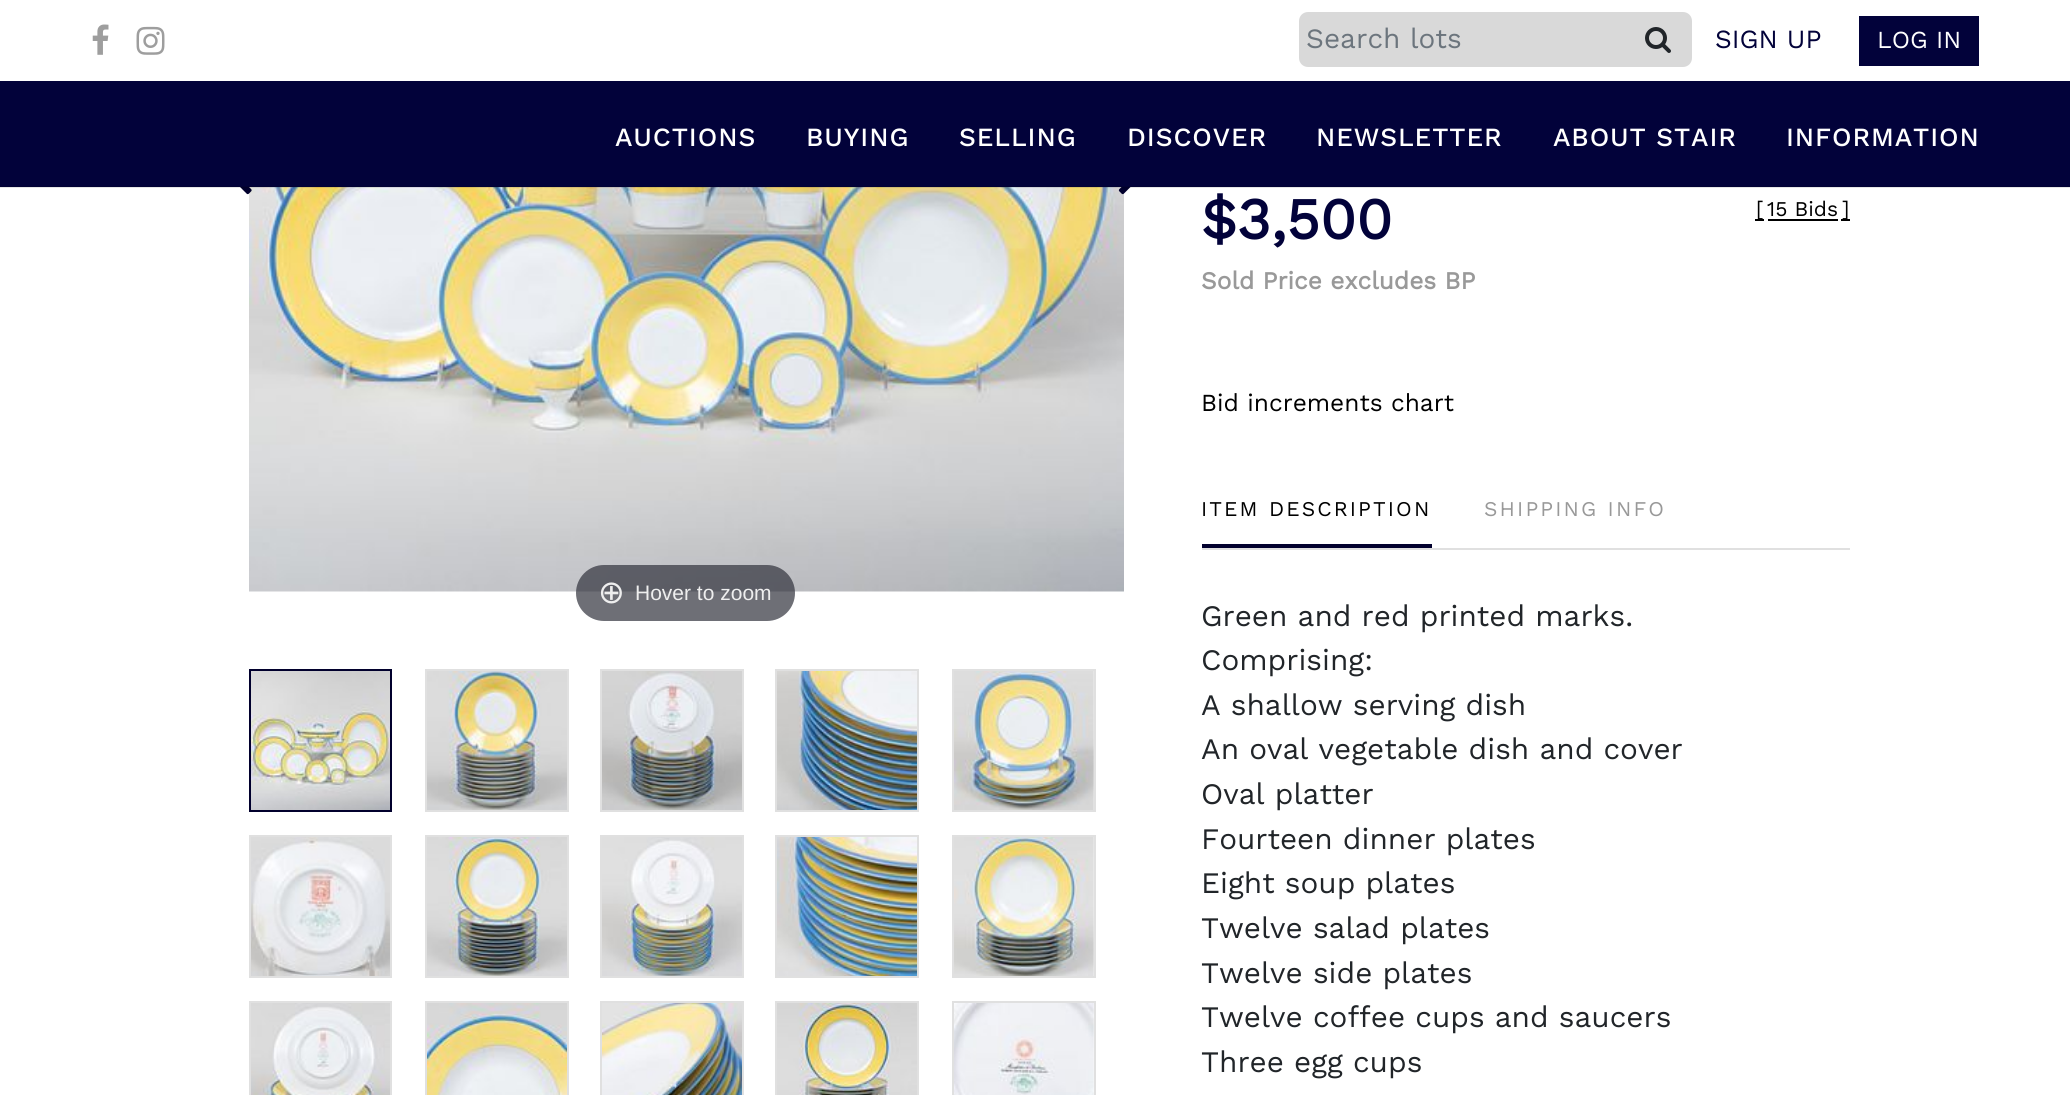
import math
import cairo

surface = cairo.ImageSurface(cairo.Format.RGB24, 2070, 1095)
ctx = cairo.Context(surface)
options = cairo.FontOptions()
options.set_hint_metrics(cairo.HintMetrics.OFF)
options.set_hint_style(cairo.HintStyle.NONE)
ctx.set_font_options(options)
ctx.set_miter_limit(4)


def ink(r, g, b):
    ctx.set_source_rgb(r / 255, g / 255, b / 255)


def write(x, y, s, family, size, color, bold=False, italic=False):
    ctx.select_font_face(family, cairo.FontSlant.ITALIC if italic else cairo.FontSlant.NORMAL, cairo.FontWeight.BOLD if bold else cairo.FontWeight.NORMAL)
    ctx.set_font_size(size)
    ink(*color)
    ctx.move_to(x, y)
    ctx.show_text(s)


def write_spaced(x, y, s, letter, word):
    ctx.move_to(x, y)
    for ch in s:
        ctx.show_text(ch)
        ctx.rel_move_to(letter + word * (ch == ' '), 0)


def block(x, y, w, h, *color):
    ink(*color)
    ctx.rectangle(x, y, w, h)
    ctx.fill()


def round_path(x, y, w, h, r):
    ctx.new_sub_path()
    for i, (u, v) in enumerate([(x + w - r, y + h - r), (x + r, y + h - r), (x + r, y + r), (x + w - r, y + r)]):
        ctx.arc(u, v, r, i * math.pi / 2, (i + 1) * math.pi / 2)
    ctx.close_path()


def paste(path, x, y, w, h):
    ctx.save()
    ctx.set_source_surface(cairo.ImageSurface.create_from_png(path), x, y)
    ctx.rectangle(x, y, w, h)
    ctx.fill()
    ctx.restore()


s1 = dict(family="Work Sans", size=28, color=(108, 117, 125))
s2 = dict(family="Work Sans", size=26.25, color=(2, 2, 58))
s3 = dict(family="Work Sans", size=24.5, color=(255, 255, 255))
s4 = dict(family="DejaVu Sans", size=32, color=(238, 238, 238))
s5 = dict(family="Liberation Sans", size=21, color=(238, 238, 238))
s6 = dict(family="Work Sans", size=58, color=(2, 2, 58), bold=True)
s7 = dict(family="Work Sans", size=24.5, color=(153, 153, 153), bold=True)
s8 = dict(family="Work Sans", size=21, color=(0, 0, 0))
s9 = dict(family="Work Sans", size=24.5, color=(0, 0, 0))
s10 = dict(family="Work Sans", size=29.75, color=(33, 37, 41))

ink(255, 255, 255)
ctx.paint()
block(0, 81, 2070, 106, 2, 2, 58)
paste("pic6.png", 249, 187, 875, 405)
paste("pic4.png", 240, 187, 12, 8)
paste("pic5.png", 1118, 187, 13, 8)
ctx.set_source_rgba(0, 0, 0, 0.1)
ctx.rectangle(0, 186, 2070, 2)
ctx.fill()
paste("pic1.png", 92, 24, 17, 31)
paste("pic2.png", 136, 26, 29, 29)
ink(217, 217, 217)
ctx.new_path()
ctx.move_to(1308, 12)
ctx.line_to(1626, 12)
ctx.line_to(1626, 67)
ctx.line_to(1308, 67)
ctx.curve_to(1303, 67, 1299, 63, 1299, 58)
ctx.line_to(1299, 21)
ctx.curve_to(1299, 16, 1303, 12, 1308, 12)
ctx.close_path()
ctx.fill()
write(1306, 48, "Search lots", **s1)
ink(217, 217, 217)
ctx.new_path()
ctx.move_to(1624, 12)
ctx.line_to(1683, 12)
ctx.curve_to(1688, 12, 1692, 16, 1692, 21)
ctx.line_to(1692, 58)
ctx.curve_to(1692, 63, 1688, 67, 1683, 67)
ctx.line_to(1624, 67)
ctx.close_path()
ctx.fill()
paste("pic3.png", 1645, 27, 26, 26)
write(1715, 48, "SIGN UP", **s2)
block(1859, 16, 120, 50, 2, 2, 58)
write(1877, 48, "LOG IN", **s3)
ctx.select_font_face("Work Sans Medium")
ctx.set_font_size(26.25)
write_spaced(615, 146, "AUCTIONS", 0.9, 0)
write_spaced(806, 146, "BUYING", 0.9, 0)
write_spaced(959, 146, "SELLING", 0.9, 0)
write_spaced(1127, 146, "DISCOVER", 0.9, 0)
write_spaced(1316, 146, "NEWSLETTER", 0.9, 0)
write_spaced(1553, 146, "ABOUT STAIR", 0.9, 0)
write_spaced(1786, 146, "INFORMATION", 0.9, 0)
ctx.set_source_rgba(0.192, 0.2, 0.239, 0.7)
round_path(576, 565, 219, 56, 28)
ctx.fill()
write(598, 603, "⊕", **s4)
write(635, 600, "Hover to zoom", **s5)
paste("pic7.png", 251, 671, 139, 139)
ctx.rectangle(250, 670, 141, 141)
ink(1, 0, 45)
ctx.stroke()
paste("pic8.png", 427, 671, 140, 139)
ctx.rectangle(426, 670, 142, 141)
ink(224, 224, 224)
ctx.stroke()
paste("pic9.png", 602, 671, 140, 139)
ctx.rectangle(601, 670, 142, 141)
ctx.stroke()
paste("pic10.png", 777, 671, 140, 139)
ctx.rectangle(776, 670, 142, 141)
ctx.stroke()
paste("pic11.png", 954, 671, 140, 139)
ctx.rectangle(953, 670, 142, 141)
ctx.stroke()
paste("pic12.png", 251, 837, 139, 139)
ctx.rectangle(250, 836, 141, 141)
ctx.stroke()
paste("pic13.png", 427, 837, 140, 139)
ctx.rectangle(426, 836, 142, 141)
ctx.stroke()
paste("pic14.png", 602, 837, 140, 139)
ctx.rectangle(601, 836, 142, 141)
ctx.stroke()
paste("pic15.png", 777, 837, 140, 139)
ctx.rectangle(776, 836, 142, 141)
ctx.stroke()
paste("pic16.png", 954, 837, 140, 139)
ctx.rectangle(953, 836, 142, 141)
ctx.stroke()
paste("pic17.png", 251, 1003, 139, 92)
ctx.rectangle(250, 1002, 141, 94)
ctx.stroke()
paste("pic18.png", 427, 1003, 140, 92)
ctx.rectangle(426, 1002, 142, 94)
ctx.stroke()
paste("pic19.png", 602, 1003, 140, 92)
ctx.rectangle(601, 1002, 142, 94)
ctx.stroke()
paste("pic20.png", 777, 1003, 140, 92)
ctx.rectangle(776, 1002, 142, 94)
ctx.stroke()
paste("pic21.png", 954, 1003, 140, 92)
ctx.rectangle(953, 1002, 142, 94)
ctx.stroke()
write(1201, 239, "$3,500", **s6)
write(1201, 289, "Sold Price excludes BP", **s7)
block(1755, 219, 9, 2, 0, 0, 0)
write(1756, 216, "[", **s8)
write(1767, 216, "15 Bids", **s8)
block(1768, 219, 70, 2, 0, 0, 0)
block(1841, 219, 9, 2, 0, 0, 0)
write(1842, 216, "]", **s8)
write(1201, 411, "Bid increments chart", **s9)
block(1202, 548, 648, 2, 224, 224, 224)
ctx.set_font_size(21)
ink(0, 0, 0)
write_spaced(1201, 516, "ITEM DESCRIPTION", 2.1, 0)
block(1202, 544, 230, 4, 1, 0, 45)
ink(153, 153, 153)
write_spaced(1484, 516, "SHIPPING INFO", 2.1, 0)
write(1201, 626, "Green and red printed marks.", **s10)
write(1201, 670, "Comprising:", **s10)
write(1201, 715, "A shallow serving dish", **s10)
write(1201, 759, "An oval vegetable dish and cover", **s10)
write(1201, 804, "Oval platter", **s10)
write(1201, 849, "Fourteen dinner plates", **s10)
write(1201, 893, "Eight soup plates", **s10)
write(1201, 938, "Twelve salad plates", **s10)
write(1201, 983, "Twelve side plates", **s10)
write(1201, 1027, "Twelve coffee cups and saucers", **s10)
write(1201, 1072, "Three egg cups", **s10)
surface.write_to_png("screenshot.png")
